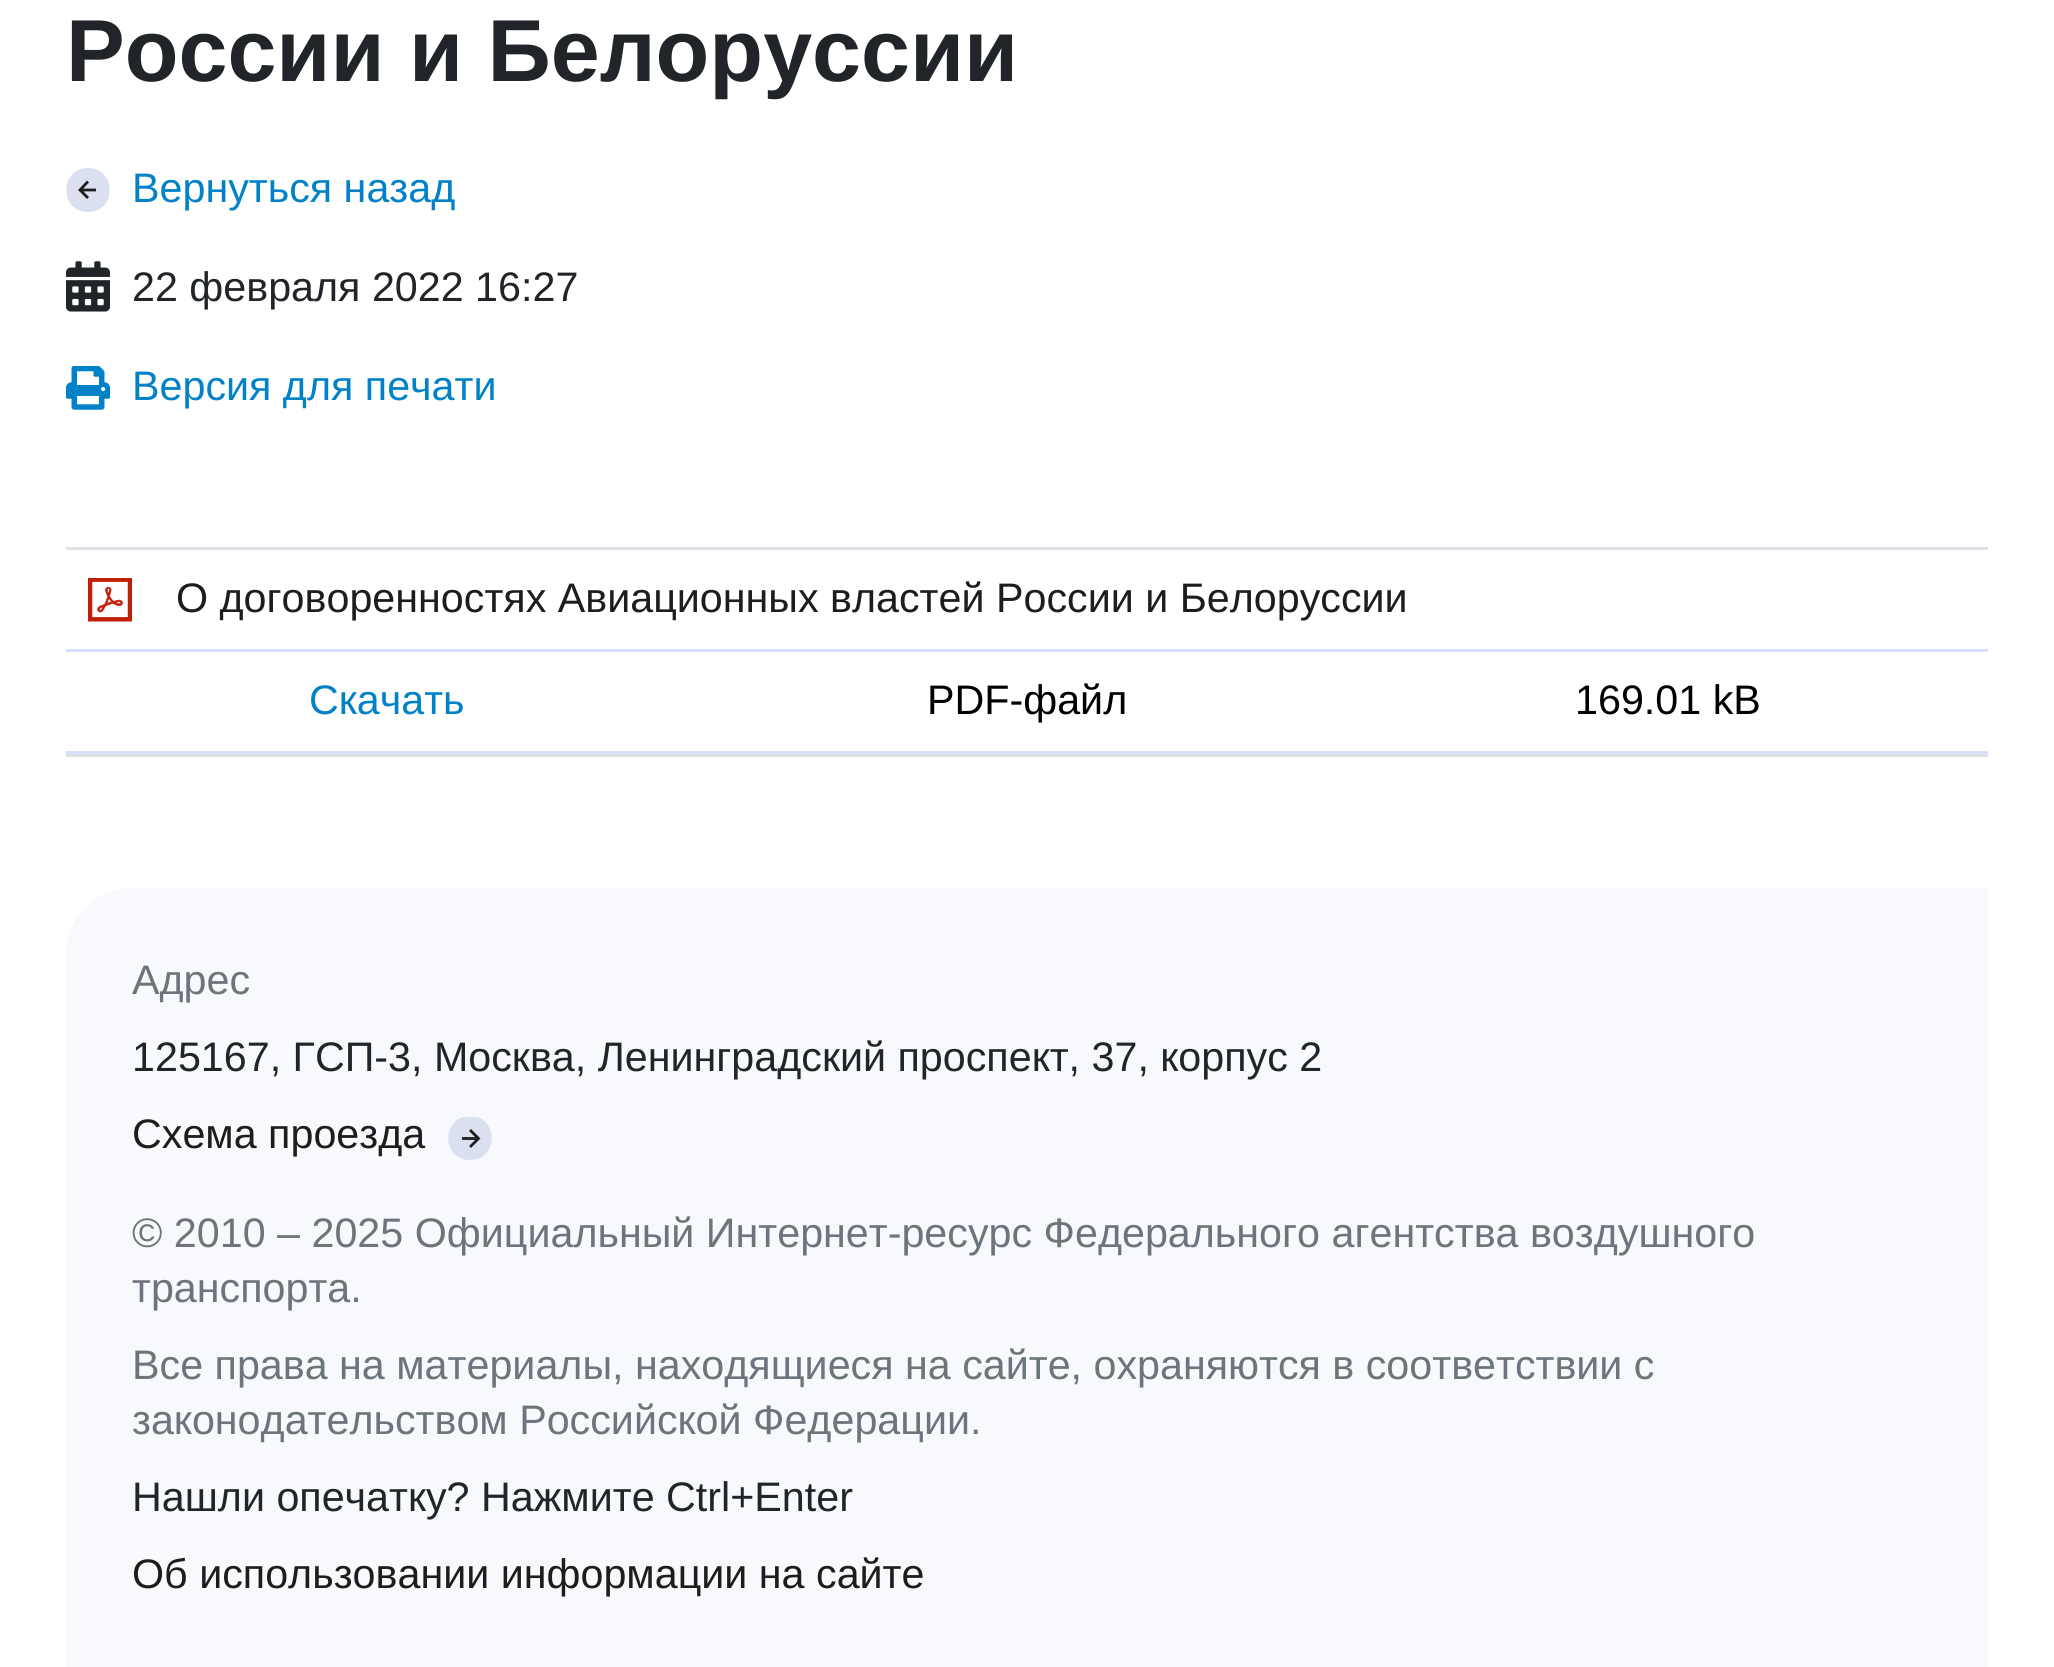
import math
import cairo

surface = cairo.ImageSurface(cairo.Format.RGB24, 2054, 1667)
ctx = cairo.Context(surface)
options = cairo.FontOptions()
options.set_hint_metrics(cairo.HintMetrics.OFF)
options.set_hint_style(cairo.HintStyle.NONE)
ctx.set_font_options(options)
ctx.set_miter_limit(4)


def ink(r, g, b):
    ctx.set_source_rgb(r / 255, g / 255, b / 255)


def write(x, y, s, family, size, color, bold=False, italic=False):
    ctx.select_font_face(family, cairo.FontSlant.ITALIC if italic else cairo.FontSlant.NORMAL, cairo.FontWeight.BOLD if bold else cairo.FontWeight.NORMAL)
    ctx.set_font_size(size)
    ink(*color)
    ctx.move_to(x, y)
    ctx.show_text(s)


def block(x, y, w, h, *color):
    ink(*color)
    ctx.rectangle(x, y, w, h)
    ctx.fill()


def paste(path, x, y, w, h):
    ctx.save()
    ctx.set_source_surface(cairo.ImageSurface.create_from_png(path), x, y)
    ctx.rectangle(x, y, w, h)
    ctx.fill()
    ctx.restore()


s1 = dict(family="Liberation Sans", size=88, color=(33, 37, 41), bold=True)
s2 = dict(family="Liberation Sans", size=41.25, color=(0, 129, 200))
s3 = dict(family="Liberation Sans", size=41.25, color=(33, 37, 41))
s4 = dict(family="Liberation Sans", size=41.25, color=(29, 29, 27))
s5 = dict(family="Liberation Sans", size=41.25, color=(0, 0, 0))
s6 = dict(family="Liberation Sans", size=41.25, color=(108, 117, 125))

ink(255, 255, 255)
ctx.paint()
write(66, 81, "России и Белоруссии", **s1)
ink(219, 224, 240)
ctx.new_path()
ctx.move_to(88, 212)
ctx.curve_to(59, 212, 59, 168, 88, 168)
ctx.curve_to(117, 168, 117, 212, 88, 212)
ctx.close_path()
ctx.fill()
ctx.new_path()
ctx.move_to(88, 198)
ctx.line_to(80, 190)
ctx.line_to(88, 181.5)
ctx.move_to(80, 190)
ctx.line_to(96, 190)
ink(29, 29, 27)
ctx.set_line_width(2.8)
ctx.stroke()
write(132, 202, "Вернуться назад", **s2)
paste("pic1.png", 66, 261, 44, 51)
write(132, 301, "22 февраля 2022 16:27", **s3)
paste("pic2.png", 66, 366, 44, 44)
write(132, 400, "Версия для печати", **s2)
block(66, 547, 1922, 3, 222, 226, 230)
block(66, 754, 1922, 3, 222, 226, 230)
block(66, 649, 1922, 3, 214, 224, 255)
paste("pic3.png", 88, 578, 44, 44)
write(176, 612, "О договоренностях Авиационных властей России и Белоруссии", **s4)
block(66, 751, 1922, 3, 214, 224, 255)
write(309, 714, "Скачать", **s2)
write(927, 714, "PDF-файл", **s5)
write(1575, 714, "169.01 kB", **s5)
ink(248, 249, 252)
ctx.new_path()
ctx.move_to(132, 888)
ctx.line_to(1988, 888)
ctx.line_to(1988, 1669)
ctx.line_to(66, 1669)
ctx.line_to(66, 954)
ctx.curve_to(66, 917.5, 95.5, 888, 132, 888)
ctx.close_path()
ctx.fill()
write(132, 994, "Адрес", **s6)
write(132, 1071, "125167, ГСП-3, Москва, Ленинградский проспект, 37, корпус 2", **s3)
write(132, 1148, "Схема проезда", **s4)
ctx.save()
ctx.rectangle(448, 1117, 44, 44)
ctx.clip()
ink(219, 224, 240)
ctx.new_path()
ctx.move_to(470, 1160)
ctx.curve_to(499, 1160, 499, 1116, 470, 1116)
ctx.curve_to(441, 1116, 441, 1160, 470, 1160)
ctx.close_path()
ctx.fill()
ctx.restore()
ctx.new_path()
ctx.move_to(470, 1147)
ctx.line_to(478.5, 1138.5)
ctx.line_to(470, 1130)
ctx.stroke()
ctx.set_source_rgba(0.114, 0.114, 0.106, 0.93)
ctx.rectangle(462, 1137, 17, 3)
ctx.fill()
write(132, 1247, "© 2010 – 2025 Официальный Интернет-ресурс Федерального агентства воздушного", **s6)
write(132, 1302, "транспорта.", **s6)
write(132, 1379, "Все права на материалы, находящиеся на сайте, охраняются в соответствии с", **s6)
write(132, 1434, "законодательством Российской Федерации.", **s6)
write(132, 1511, "Нашли опечатку? Нажмите Ctrl+Enter", **s3)
write(132, 1588, "Об использовании информации на сайте", **s4)
surface.write_to_png("screenshot.png")
